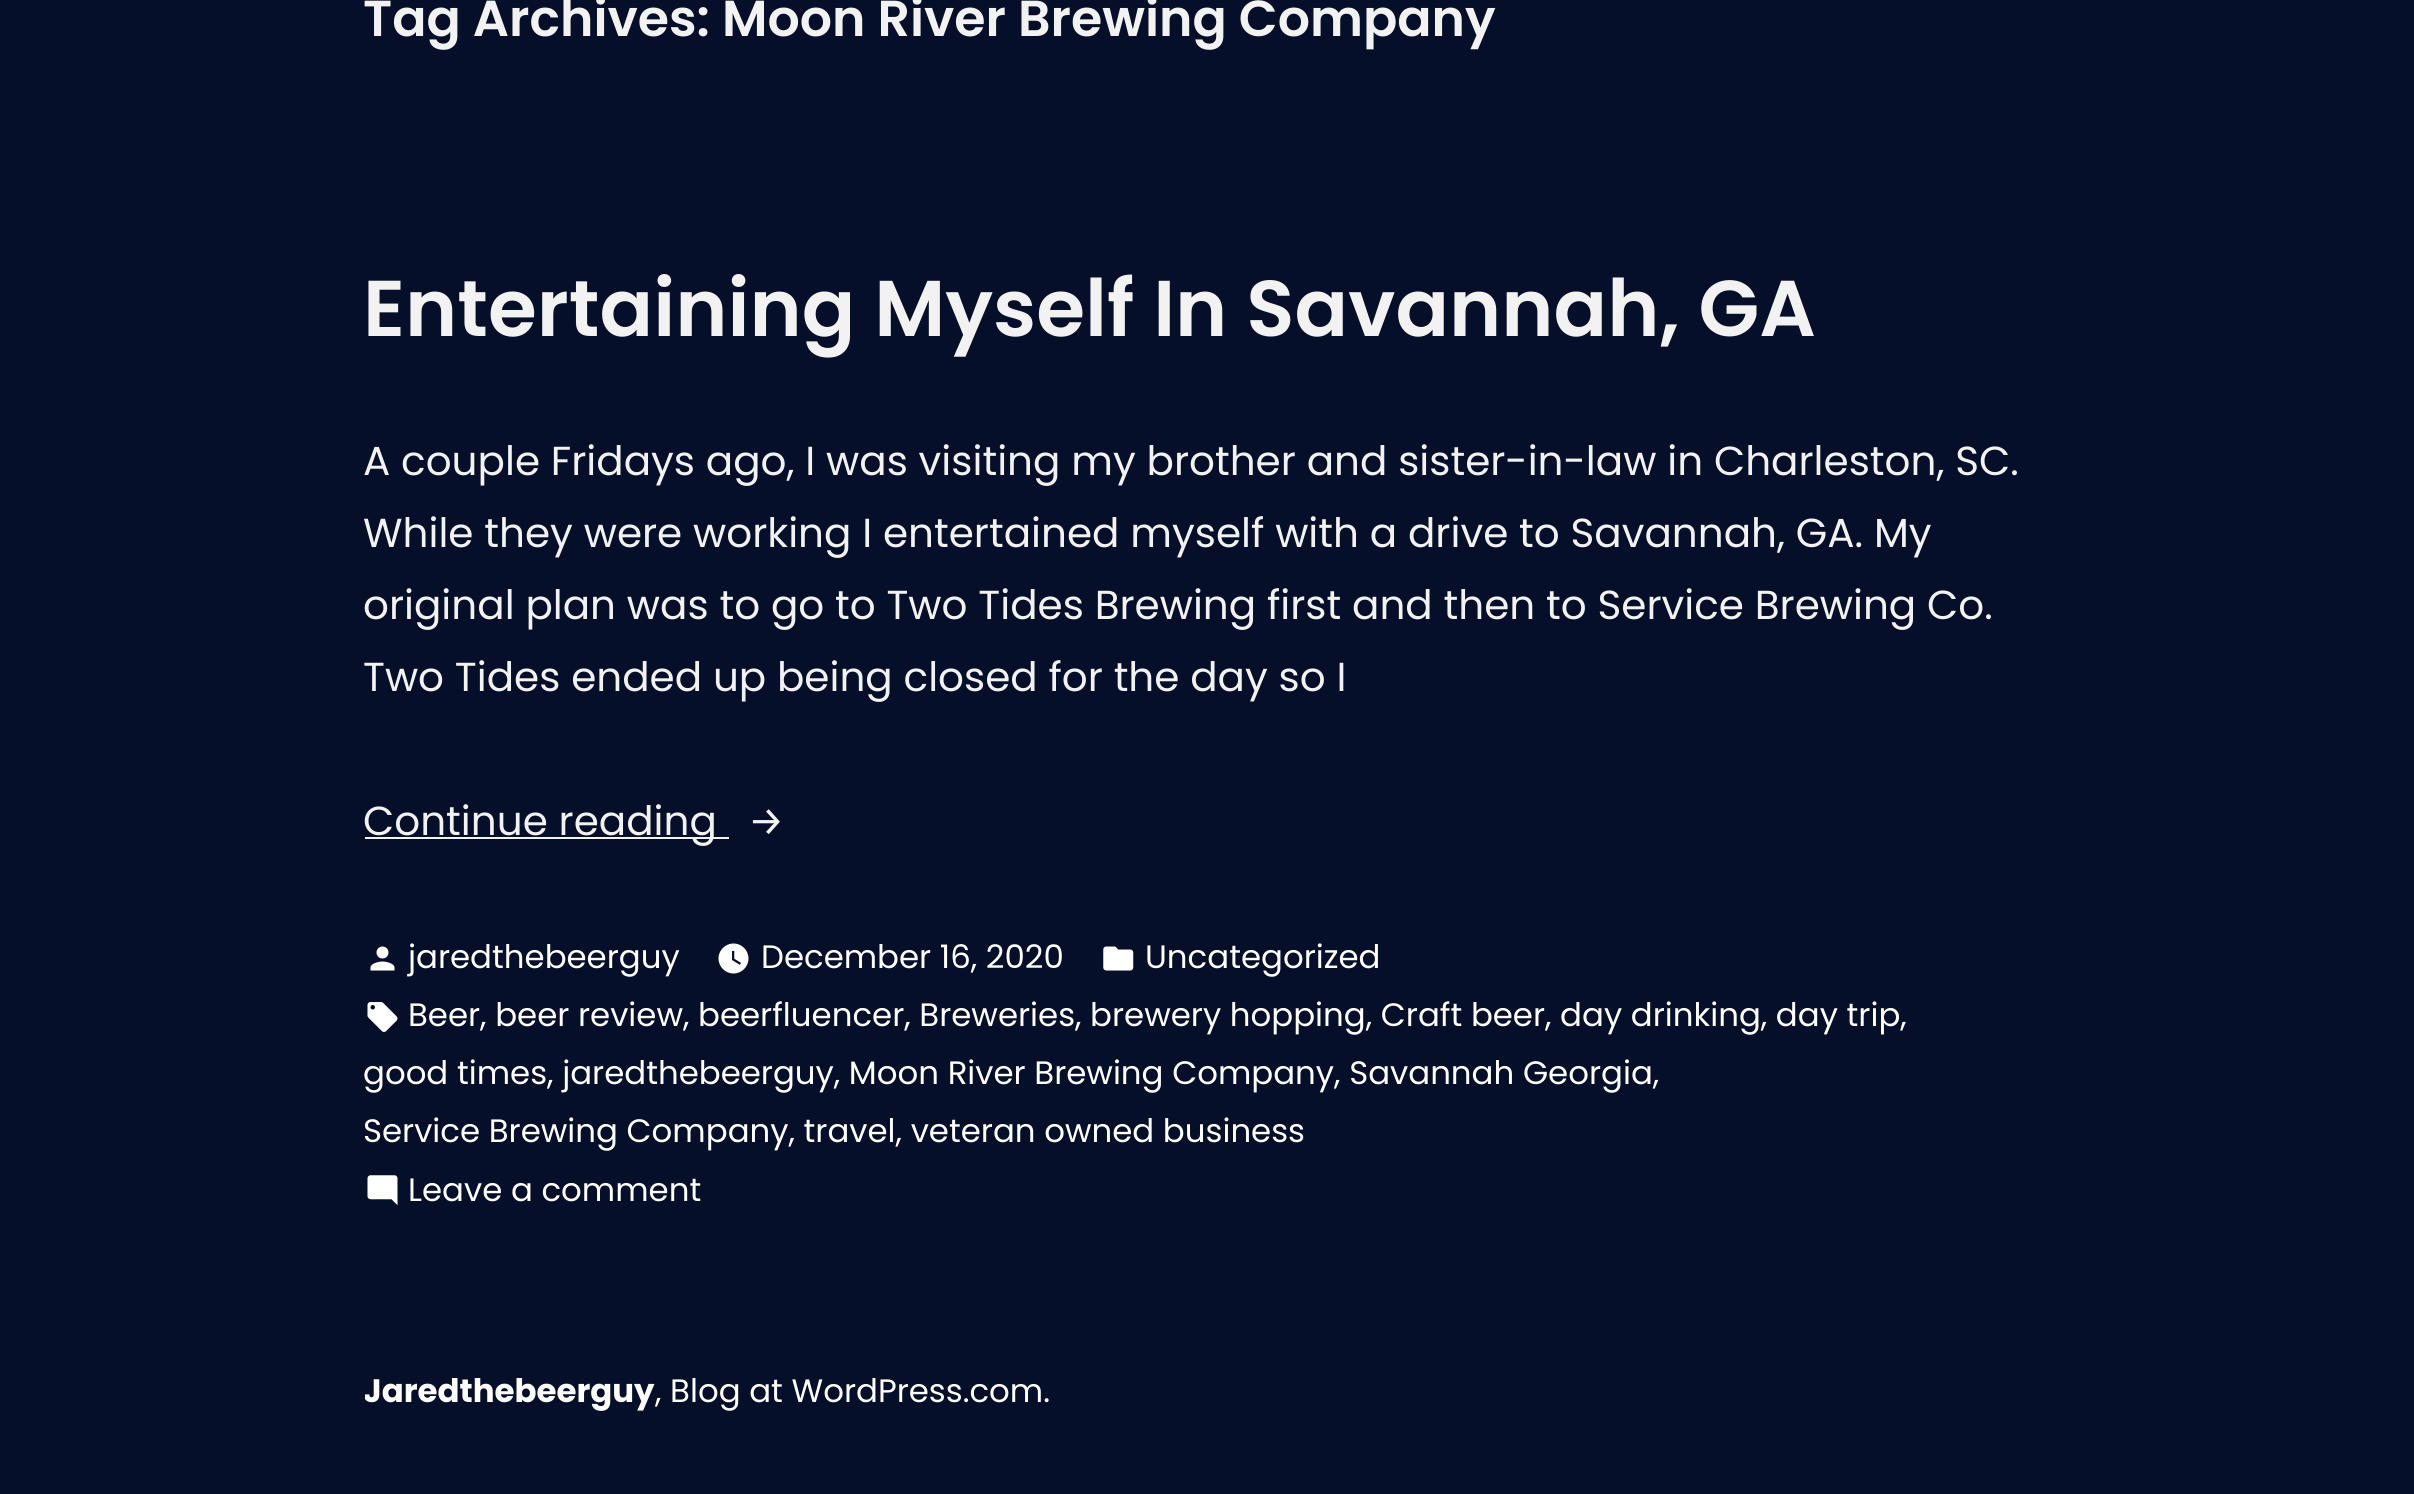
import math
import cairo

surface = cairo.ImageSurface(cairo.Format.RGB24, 2414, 1494)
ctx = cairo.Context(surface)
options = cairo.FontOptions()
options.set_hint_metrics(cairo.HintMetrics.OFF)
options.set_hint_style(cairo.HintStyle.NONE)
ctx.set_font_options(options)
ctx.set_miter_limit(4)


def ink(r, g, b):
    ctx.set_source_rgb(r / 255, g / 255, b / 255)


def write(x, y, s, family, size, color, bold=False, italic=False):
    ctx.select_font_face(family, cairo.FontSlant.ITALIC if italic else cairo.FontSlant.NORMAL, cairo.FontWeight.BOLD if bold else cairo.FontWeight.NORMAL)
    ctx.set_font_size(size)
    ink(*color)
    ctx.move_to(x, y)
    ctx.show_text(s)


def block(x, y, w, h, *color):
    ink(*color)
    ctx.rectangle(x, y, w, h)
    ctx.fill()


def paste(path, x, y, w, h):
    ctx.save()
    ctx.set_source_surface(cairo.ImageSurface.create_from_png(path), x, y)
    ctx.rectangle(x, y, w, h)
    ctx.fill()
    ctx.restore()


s1 = dict(family="Poppins SemiBold", size=50.6, color=(242, 242, 242))
s2 = dict(family="Poppins SemiBold", size=79.1, color=(242, 242, 242))
s3 = dict(family="Poppins", size=40.5, color=(242, 242, 242))
s4 = dict(family="Fira Sans", size=40.5, color=(242, 242, 242))
s5 = dict(family="Poppins", size=32.4, color=(255, 255, 255))
s6 = dict(family="Poppins", size=32.4, color=(255, 255, 255), bold=True)

ink(6, 15, 41)
ctx.paint()
write(363, 36, "Tag Archives: Moon River Brewing Company", **s1)
write(363, 336, "Entertaining Myself In Savannah, GA", **s2)
write(363, 475, "A couple Fridays ago, I was visiting my brother and sister-in-law in Charleston, SC.", **s3)
write(363, 547, "While they were working I entertained myself with a drive to Savannah, GA. My", **s3)
write(363, 619, "original plan was to go to Two Tides Brewing first and then to Service Brewing Co.", **s3)
write(363, 691, "Two Tides ended up being closed for the day so I", **s3)
block(365, 837, 364, 2, 242, 242, 242)
write(363, 835, "Continue reading", **s3)
write(748, 835, "→", **s4)
paste("pic1.png", 370, 946, 25, 25)
write(408, 968, "jaredthebeerguy", **s5)
paste("pic2.png", 718, 943, 31, 31)
write(761, 968, "December 16, 2020", **s5)
paste("pic3.png", 1103, 946, 31, 25)
write(1145, 968, "Uncategorized", **s5)
paste("pic4.png", 367, 1002, 31, 30)
write(408, 1026, "Beer, beer review, beerfluencer, Breweries, brewery hopping, Craft beer, day drinking, day trip,", **s5)
write(363, 1084, "good times, jaredthebeerguy, Moon River Brewing Company, Savannah Georgia,", **s5)
write(363, 1142, "Service Brewing Company, travel, veteran owned business", **s5)
paste("pic5.png", 367, 1175, 31, 31)
write(408, 1201, "Leave a comment", **s5)
ctx.save()
ctx.rectangle(365, 1292, 1687, 202)
ctx.clip()
write(363, 1402, "Jaredthebeerguy", **s6)
ctx.restore()
write(655, 1402, ", Blog at WordPress.com.", **s5)
surface.write_to_png("screenshot.png")
